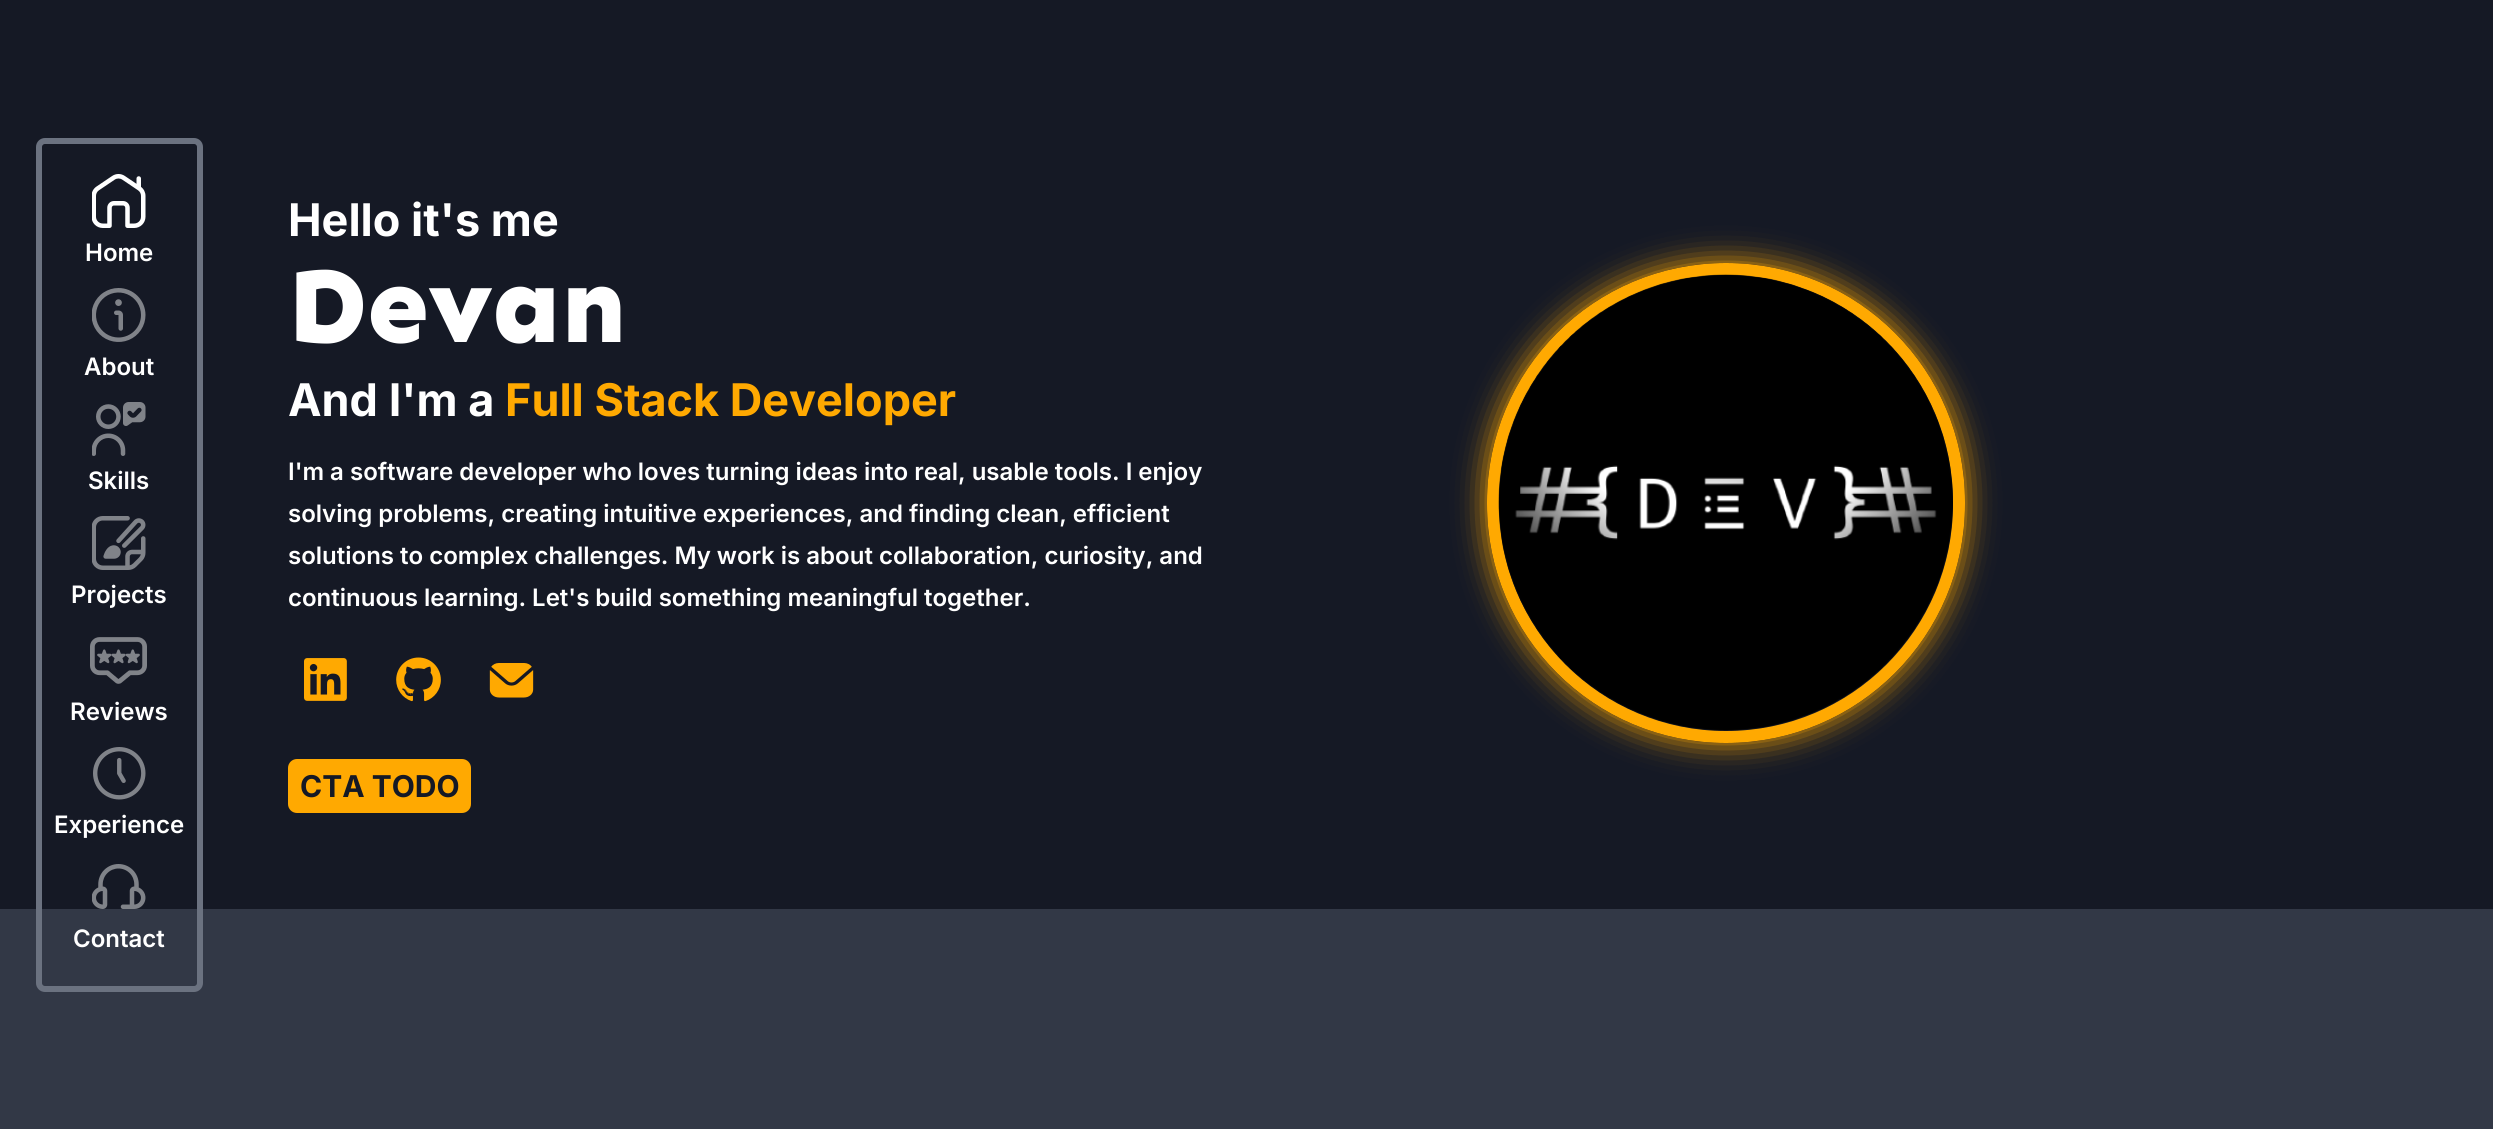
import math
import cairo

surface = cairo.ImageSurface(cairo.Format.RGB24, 2493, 1129)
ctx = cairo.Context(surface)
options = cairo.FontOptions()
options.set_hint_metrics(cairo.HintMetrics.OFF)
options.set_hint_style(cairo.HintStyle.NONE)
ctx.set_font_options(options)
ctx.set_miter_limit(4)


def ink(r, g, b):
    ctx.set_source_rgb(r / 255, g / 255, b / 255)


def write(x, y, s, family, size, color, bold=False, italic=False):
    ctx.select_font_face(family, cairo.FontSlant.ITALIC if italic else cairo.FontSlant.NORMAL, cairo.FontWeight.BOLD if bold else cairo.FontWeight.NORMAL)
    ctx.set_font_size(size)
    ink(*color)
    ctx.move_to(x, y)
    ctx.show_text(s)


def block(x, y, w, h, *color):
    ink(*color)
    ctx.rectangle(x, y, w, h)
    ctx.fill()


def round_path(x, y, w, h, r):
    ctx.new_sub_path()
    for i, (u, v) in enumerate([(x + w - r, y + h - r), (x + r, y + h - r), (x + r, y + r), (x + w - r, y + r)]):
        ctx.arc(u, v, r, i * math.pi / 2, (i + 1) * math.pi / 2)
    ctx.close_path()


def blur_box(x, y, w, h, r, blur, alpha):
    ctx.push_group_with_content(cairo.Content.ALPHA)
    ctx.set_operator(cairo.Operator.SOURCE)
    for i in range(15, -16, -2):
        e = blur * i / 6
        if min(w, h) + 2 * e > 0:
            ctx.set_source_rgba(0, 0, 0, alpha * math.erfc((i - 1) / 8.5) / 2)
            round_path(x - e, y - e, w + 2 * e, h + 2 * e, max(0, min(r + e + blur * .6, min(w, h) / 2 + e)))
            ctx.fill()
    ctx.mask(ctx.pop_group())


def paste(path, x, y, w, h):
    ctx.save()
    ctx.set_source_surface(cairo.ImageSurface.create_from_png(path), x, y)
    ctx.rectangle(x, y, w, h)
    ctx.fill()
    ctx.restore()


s1 = dict(family="Inter SemiBold", size=24, color=(255, 255, 255))
s2 = dict(family="Inter", size=45, color=(255, 255, 255), bold=True)
s3 = dict(family="Sen ExtraBold", size=108, color=(255, 255, 255))
s4 = dict(family="Inter", size=45, color=(255, 169, 1), bold=True)
s5 = dict(family="Inter", size=30, color=(21, 25, 37), bold=True)

ink(21, 25, 37)
ctx.paint()
block(0, 909, 2493, 220, 50, 56, 70)
round_path(39, 141, 161, 848, 6)
ink(107, 114, 128)
ctx.set_line_width(6)
ctx.stroke()
paste("pic1.png", 92, 174, 54, 54)
write(85, 261, "Home", **s1)
paste("pic2.png", 92, 288, 54, 54)
write(84, 375, "About", **s1)
paste("pic3.png", 92, 402, 54, 54)
write(88, 489, "Skills", **s1)
paste("pic4.png", 92, 516, 54, 54)
write(71, 603, "Projects", **s1)
paste("pic5.png", 90, 637, 57, 47)
write(70, 720, "Reviews", **s1)
paste("pic6.png", 93, 747, 53, 53)
write(54, 833, "Experience", **s1)
paste("pic7.png", 92, 864, 54, 45)
write(73, 947, "Contact", **s1)
write(288, 236, "Hello it's me", **s2)
write(288, 342, "Devan", **s3)
write(288, 416, "And I'm a", **s2)
write(505, 416, "Full Stack Developer", **s4)
write(288, 480, "I'm a software developer who loves turning ideas into real, usable tools. I enjoy", **s1)
write(288, 522, "solving problems, creating intuitive experiences, and finding clean, efficient", **s1)
write(288, 564, "solutions to complex challenges. My work is about collaboration, curiosity, and", **s1)
write(288, 606, "continuous learning. Let's build something meaningful together.", **s1)
paste("pic8.png", 304, 658, 43, 43)
paste("pic9.png", 396, 657, 45, 45)
paste("pic10.png", 489, 663, 45, 35)
ink(255, 169, 1)
round_path(288, 759, 183, 54, 9)
ctx.fill()
write(300, 797, "CTA TODO", **s5)
ctx.save()
ctx.set_fill_rule(cairo.FillRule.EVEN_ODD)
ctx.new_path()
ctx.move_to(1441, 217)
ctx.line_to(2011, 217)
ctx.line_to(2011, 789)
ctx.line_to(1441, 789)
ctx.close_path()
ctx.move_to(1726, 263)
ctx.curve_to(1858, 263, 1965, 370, 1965, 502)
ctx.line_to(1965, 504)
ctx.curve_to(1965, 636, 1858, 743, 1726, 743)
ctx.curve_to(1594, 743, 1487, 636, 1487, 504)
ctx.line_to(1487, 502)
ctx.curve_to(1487, 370, 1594, 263, 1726, 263)
ctx.close_path()
ctx.clip()
ink(255, 169, 1)
blur_box(1487, 263, 478, 480, 239, 15, 1)
ctx.restore()
round_path(1493, 269, 466, 468, 233)
ink(255, 169, 1)
ctx.set_line_width(12)
ctx.stroke()
paste("pic11.png", 1498, 274, 455, 457)
surface.write_to_png("screenshot.png")
